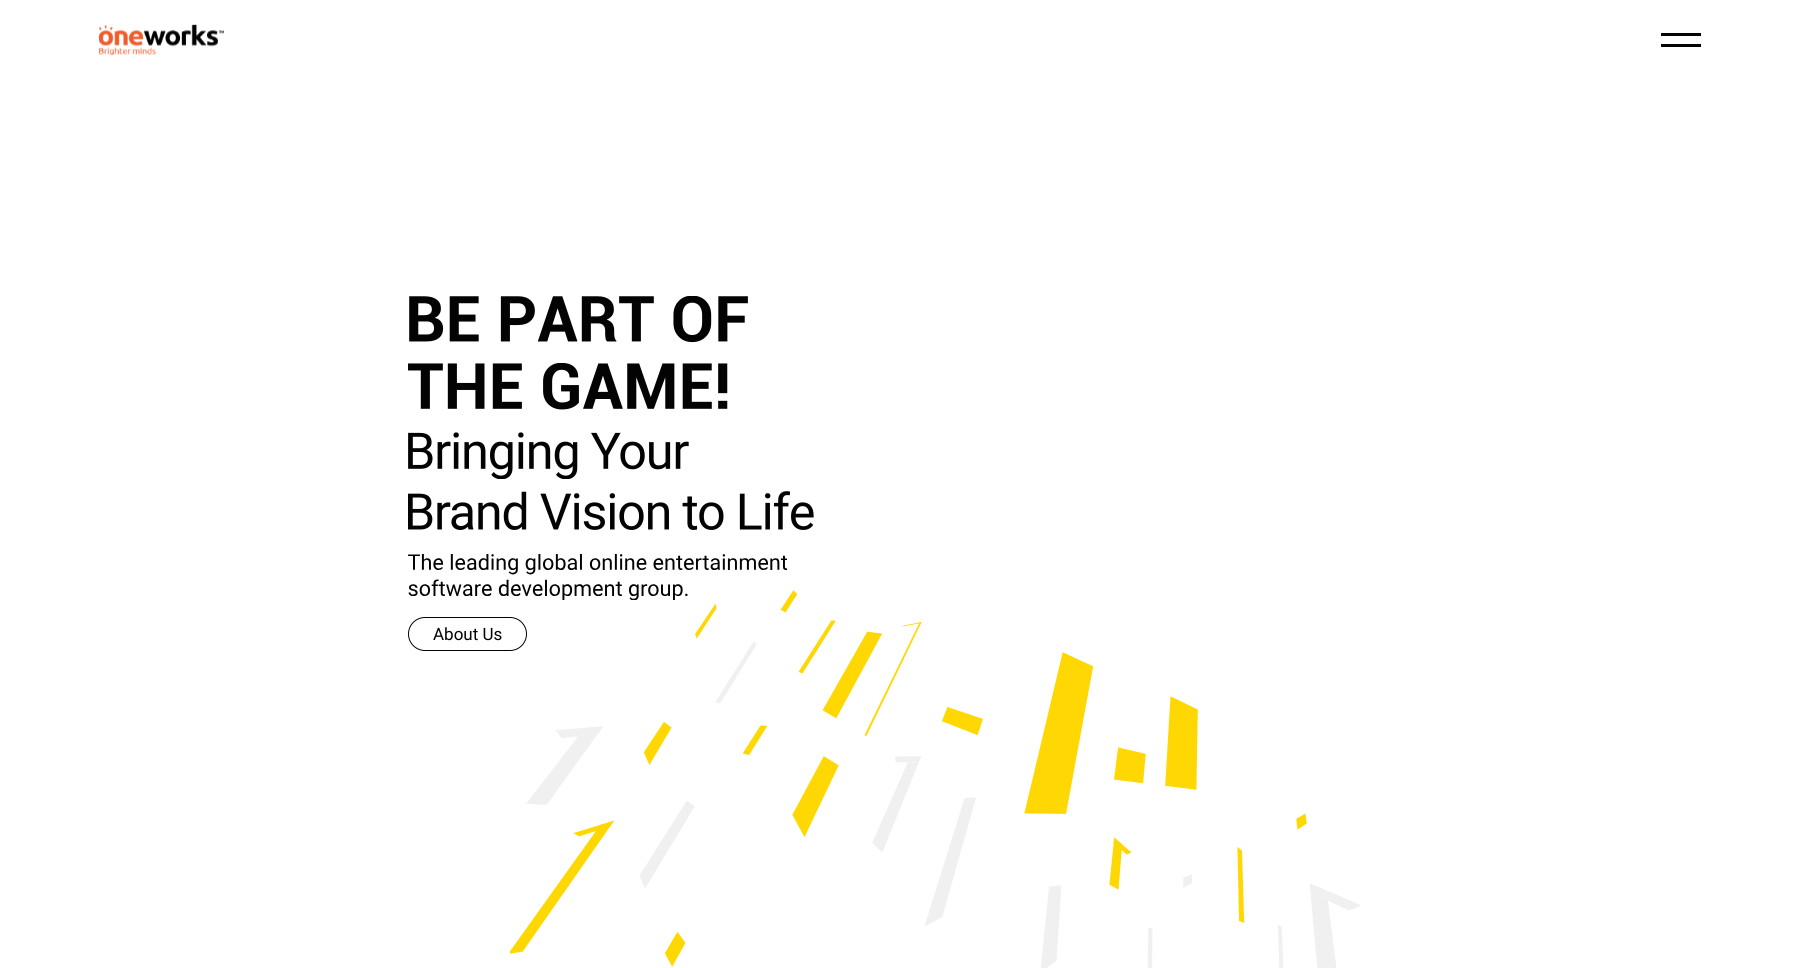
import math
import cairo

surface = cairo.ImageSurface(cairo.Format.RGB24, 1800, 968)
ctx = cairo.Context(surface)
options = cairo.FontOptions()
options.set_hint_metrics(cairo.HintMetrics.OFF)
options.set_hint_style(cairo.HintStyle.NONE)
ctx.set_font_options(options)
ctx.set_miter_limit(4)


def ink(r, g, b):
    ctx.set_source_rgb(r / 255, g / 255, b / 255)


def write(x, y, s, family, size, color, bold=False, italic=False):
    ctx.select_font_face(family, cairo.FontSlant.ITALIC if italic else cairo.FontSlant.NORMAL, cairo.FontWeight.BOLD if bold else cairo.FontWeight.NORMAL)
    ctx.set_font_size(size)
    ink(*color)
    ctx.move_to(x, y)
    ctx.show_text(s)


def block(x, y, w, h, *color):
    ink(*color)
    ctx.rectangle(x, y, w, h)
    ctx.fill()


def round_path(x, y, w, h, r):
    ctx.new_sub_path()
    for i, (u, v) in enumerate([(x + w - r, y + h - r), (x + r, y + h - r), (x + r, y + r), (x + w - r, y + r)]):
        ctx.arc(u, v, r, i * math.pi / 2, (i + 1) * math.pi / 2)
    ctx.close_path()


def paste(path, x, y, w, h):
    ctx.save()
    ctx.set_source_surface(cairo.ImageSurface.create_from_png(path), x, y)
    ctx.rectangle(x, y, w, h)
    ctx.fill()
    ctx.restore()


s1 = dict(family="Roboto", size=17, color=(3, 3, 3))

ink(255, 255, 255)
ctx.paint()
paste("pic1.png", 99, 24, 125, 31)
block(1661, 33, 40, 3, 3, 3, 3)
block(1661, 44, 40, 3, 3, 3, 3)
paste("pic2.png", 409, 296, 339, 47)
paste("pic3.png", 408, 363, 320, 47)
paste("pic4.png", 408, 432, 281, 47)
paste("pic5.png", 408, 491, 406, 39)
paste("pic7.png", 510, 590, 851, 378)
paste("pic6.png", 408, 554, 379, 46)
round_path(408.5, 617.5, 118, 33, 16.5)
ctx.set_line_width(1)
ctx.stroke()
write(433, 640, "About Us", **s1)
surface.write_to_png("screenshot.png")
